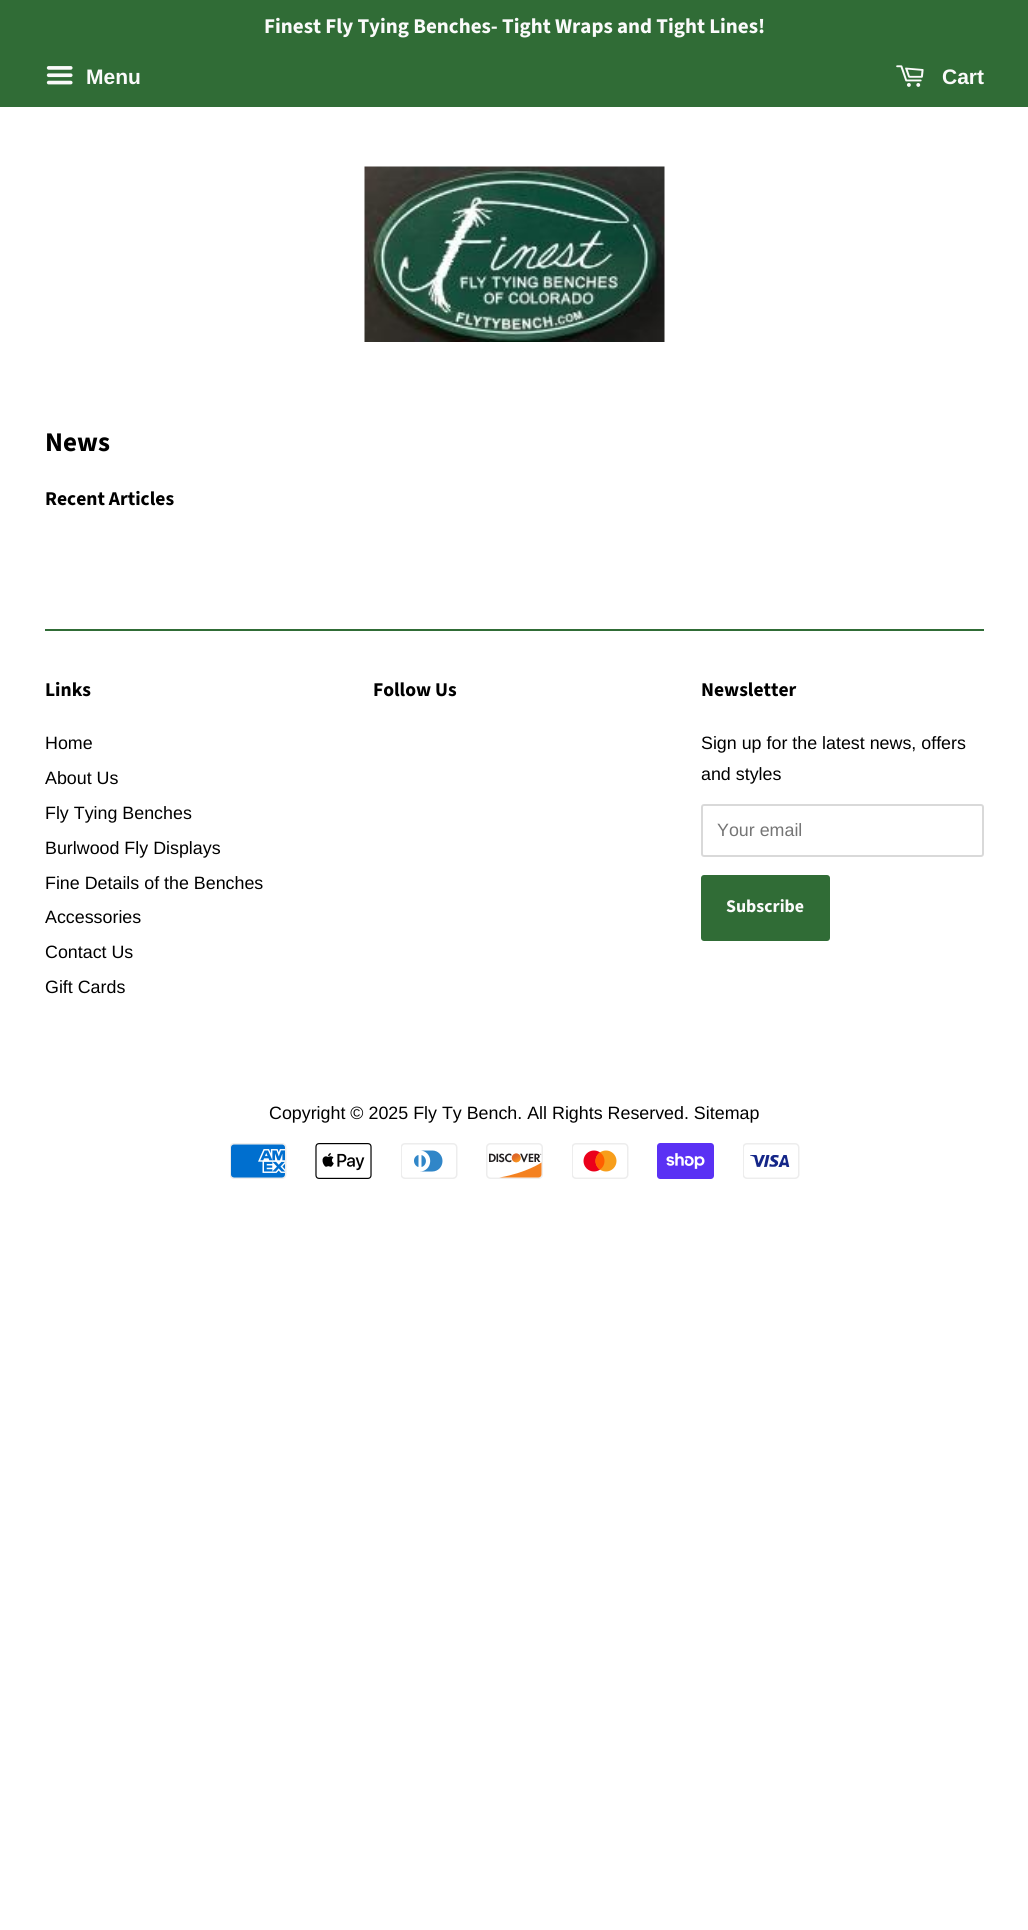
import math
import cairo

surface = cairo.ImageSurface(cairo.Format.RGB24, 1028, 1930)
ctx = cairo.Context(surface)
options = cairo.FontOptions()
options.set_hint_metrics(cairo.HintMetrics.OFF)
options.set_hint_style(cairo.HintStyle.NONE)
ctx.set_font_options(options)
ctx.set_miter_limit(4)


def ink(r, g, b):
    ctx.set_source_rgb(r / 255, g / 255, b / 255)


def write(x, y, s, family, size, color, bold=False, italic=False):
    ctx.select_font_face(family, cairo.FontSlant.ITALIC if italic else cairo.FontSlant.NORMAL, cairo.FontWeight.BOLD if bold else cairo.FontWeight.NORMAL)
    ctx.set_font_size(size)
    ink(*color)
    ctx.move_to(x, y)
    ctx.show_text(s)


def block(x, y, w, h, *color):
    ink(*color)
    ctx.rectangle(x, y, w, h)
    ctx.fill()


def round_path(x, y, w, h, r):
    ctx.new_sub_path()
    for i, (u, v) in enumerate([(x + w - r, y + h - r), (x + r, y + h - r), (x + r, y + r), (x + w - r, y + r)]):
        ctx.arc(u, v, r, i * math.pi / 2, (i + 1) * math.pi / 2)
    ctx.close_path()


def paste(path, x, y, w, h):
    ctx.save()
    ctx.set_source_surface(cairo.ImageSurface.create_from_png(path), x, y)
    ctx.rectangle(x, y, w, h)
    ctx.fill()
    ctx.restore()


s1 = dict(family="Source Sans Pro", size=21, color=(250, 250, 250), bold=True)
s2 = dict(family="Liberation Sans", size=21, color=(250, 250, 250), bold=True)
s3 = dict(family="Source Sans Pro", size=27, color=(0, 0, 0), bold=True)
s4 = dict(family="Source Sans Pro", size=19.5, color=(0, 0, 0), bold=True)
s5 = dict(family="Liberation Sans", size=17.85, color=(0, 0, 0))
s6 = dict(family="Liberation Sans", size=17.85, color=(117, 117, 117))
s7 = dict(family="Source Sans Pro", size=17.85, color=(250, 250, 250), bold=True)

ink(255, 255, 255)
ctx.paint()
block(0, 0, 1028, 107, 48, 108, 54)
write(264, 33, "Finest Fly Tying Benches- Tight Wraps and Tight Lines!", **s1)
paste("pic1.png", 46, 66, 27, 19)
write(86, 84, "Menu", **s2)
paste("pic2.png", 896, 65, 28, 22)
write(942, 84, "Cart", **s2)
paste("pic3.png", 364, 166, 301, 176)
write(45, 451, "News", **s3)
write(45, 505, "Recent Articles", **s4)
block(45, 629, 939, 2, 48, 108, 54)
write(45, 696, "Links", **s4)
write(45, 749, "Home", **s5)
write(45, 784, "About Us", **s5)
write(45, 819, "Fly Tying Benches", **s5)
write(45, 854, "Burlwood Fly Displays", **s5)
write(45, 889, "Fine Details of the Benches", **s5)
write(45, 923, "Accessories", **s5)
write(45, 958, "Contact Us", **s5)
write(45, 993, "Gift Cards", **s5)
write(373, 696, "Follow Us", **s4)
write(701, 696, "Newsletter", **s4)
write(701, 749, "Sign up for the latest news, offers", **s5)
write(701, 780, "and styles", **s5)
round_path(702, 805, 281, 51, 2)
ink(217, 217, 217)
ctx.stroke()
write(717, 836, "Your email", **s6)
ink(48, 108, 54)
round_path(701, 875, 129, 66, 3)
ctx.fill()
write(726, 912, "Subscribe", **s7)
write(269, 1119, "Copyright © 2025 Fly Ty Bench. All Rights Reserved. Sitemap", **s5)
paste("pic4.png", 230, 1143, 57, 36)
paste("pic5.png", 315, 1143, 57, 36)
paste("pic6.png", 401, 1143, 57, 36)
paste("pic7.png", 486, 1143, 57, 36)
paste("pic8.png", 572, 1143, 57, 36)
paste("pic9.png", 657, 1143, 57, 36)
paste("pic10.png", 743, 1143, 57, 36)
surface.write_to_png("screenshot.png")
